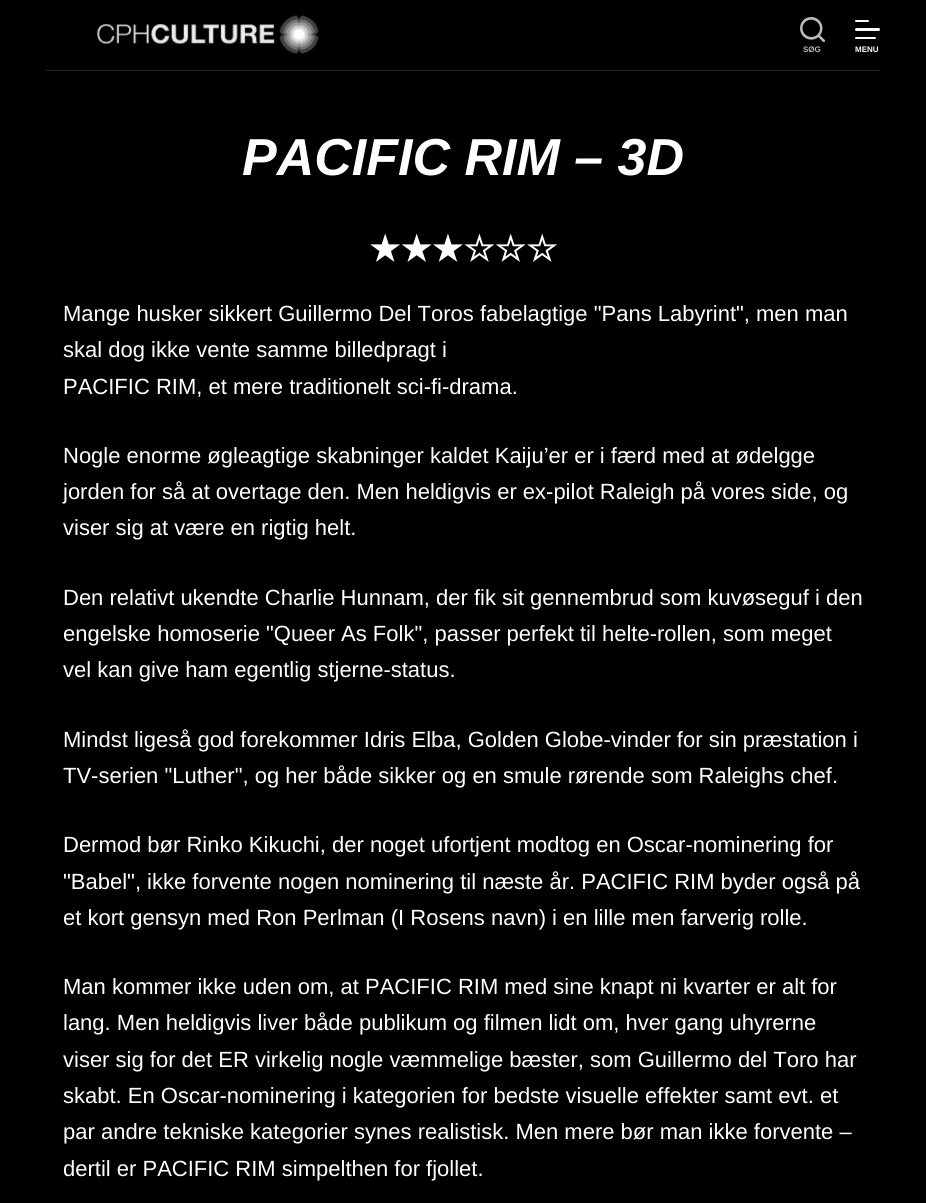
import math
import cairo

surface = cairo.ImageSurface(cairo.Format.RGB24, 926, 1203)
ctx = cairo.Context(surface)
options = cairo.FontOptions()
options.set_hint_metrics(cairo.HintMetrics.OFF)
options.set_hint_style(cairo.HintStyle.NONE)
ctx.set_font_options(options)
ctx.set_miter_limit(4)


def ink(r, g, b):
    ctx.set_source_rgb(r / 255, g / 255, b / 255)


def write(x, y, s, family, size, color, bold=False, italic=False):
    ctx.select_font_face(family, cairo.FontSlant.ITALIC if italic else cairo.FontSlant.NORMAL, cairo.FontWeight.BOLD if bold else cairo.FontWeight.NORMAL)
    ctx.set_font_size(size)
    ink(*color)
    ctx.move_to(x, y)
    ctx.show_text(s)


def block(x, y, w, h, *color):
    ink(*color)
    ctx.rectangle(x, y, w, h)
    ctx.fill()


def round_path(x, y, w, h, r):
    ctx.new_sub_path()
    for i, (u, v) in enumerate([(x + w - r, y + h - r), (x + r, y + h - r), (x + r, y + r), (x + w - r, y + r)]):
        ctx.arc(u, v, r, i * math.pi / 2, (i + 1) * math.pi / 2)
    ctx.close_path()


def paste(path, x, y, w, h):
    ctx.save()
    ctx.set_source_surface(cairo.ImageSurface.create_from_png(path), x, y)
    ctx.rectangle(x, y, w, h)
    ctx.fill()
    ctx.restore()


s1 = dict(family="Liberation Sans", size=8, color=(186, 186, 186), bold=True)
s2 = dict(family="Liberation Sans", size=8, color=(255, 255, 255), bold=True)
s3 = dict(family="Liberation Sans", size=52, color=(255, 255, 255), bold=True, italic=True)
s4 = dict(family="DejaVu Sans", size=35, color=(255, 255, 255), bold=True)
s5 = dict(family="Liberation Sans", size=22, color=(255, 255, 255))

ink(0, 0, 0)
ctx.paint()
block(46, 70, 834, 1, 33, 33, 33)
paste("pic1.png", 96, 15, 223, 39)
paste("pic2.png", 800, 17, 25, 25)
write(803, 52, "SØG", **s1)
ink(250, 251, 252)
round_path(855, 20, 14, 2, 1)
ctx.fill()
round_path(855, 28, 25, 3, 1.5)
ctx.fill()
round_path(855, 37, 21, 2, 1)
ctx.fill()
write(855, 52, "MENU", **s2)
write(242, 175, "PACIFIC RIM – 3D", **s3)
write(369, 261, "★★★☆☆☆", **s4)
write(63, 321, "Mange husker sikkert Guillermo Del Toros fabelagtige \"Pans Labyrint\", men man", **s5)
write(63, 357, "skal dog ikke vente samme billedpragt i", **s5)
write(63, 394, "PACIFIC RIM, et mere traditionelt sci-fi-drama.", **s5)
write(63, 463, "Nogle enorme øgleagtige skabninger kaldet Kaiju’er er i færd med at ødelgge", **s5)
write(63, 499, "jorden for så at overtage den. Men heldigvis er ex-pilot Raleigh på vores side, og", **s5)
write(63, 535, "viser sig at være en rigtig helt.", **s5)
write(63, 605, "Den relativt ukendte Charlie Hunnam, der fik sit gennembrud som kuvøseguf i den", **s5)
write(63, 641, "engelske homoserie \"Queer As Folk\", passer perfekt til helte-rollen, som meget", **s5)
write(63, 677, "vel kan give ham egentlig stjerne-status.", **s5)
write(63, 747, "Mindst ligeså god forekommer Idris Elba, Golden Globe-vinder for sin præstation i", **s5)
write(63, 783, "TV-serien \"Luther\", og her både sikker og en smule rørende som Raleighs chef.", **s5)
write(63, 852, "Dermod bør Rinko Kikuchi, der noget ufortjent modtog en Oscar-nominering for", **s5)
write(63, 889, "\"Babel\", ikke forvente nogen nominering til næste år. PACIFIC RIM byder også på", **s5)
write(63, 925, "et kort gensyn med Ron Perlman (I Rosens navn) i en lille men farverig rolle.", **s5)
write(63, 994, "Man kommer ikke uden om, at PACIFIC RIM med sine knapt ni kvarter er alt for", **s5)
write(63, 1030, "lang. Men heldigvis liver både publikum og filmen lidt om, hver gang uhyrerne", **s5)
write(63, 1067, "viser sig for det ER virkelig nogle væmmelige bæster, som Guillermo del Toro har", **s5)
write(63, 1103, "skabt. En Oscar-nominering i kategorien for bedste visuelle effekter samt evt. et", **s5)
write(63, 1139, "par andre tekniske kategorier synes realistisk. Men mere bør man ikke forvente –", **s5)
write(63, 1176, "dertil er PACIFIC RIM simpelthen for fjollet.", **s5)
surface.write_to_png("screenshot.png")
